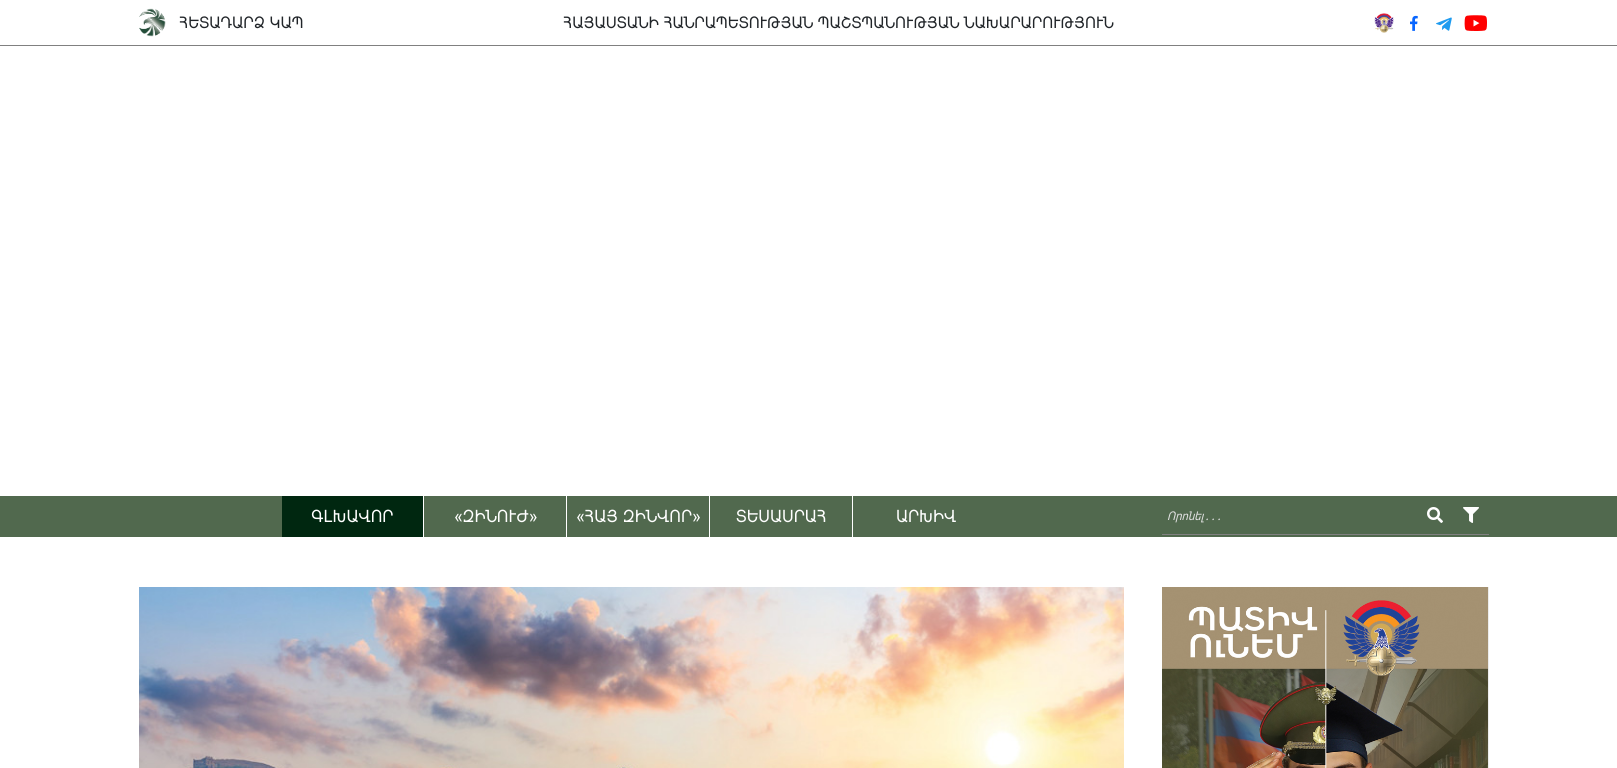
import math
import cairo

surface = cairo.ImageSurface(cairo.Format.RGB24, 1617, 768)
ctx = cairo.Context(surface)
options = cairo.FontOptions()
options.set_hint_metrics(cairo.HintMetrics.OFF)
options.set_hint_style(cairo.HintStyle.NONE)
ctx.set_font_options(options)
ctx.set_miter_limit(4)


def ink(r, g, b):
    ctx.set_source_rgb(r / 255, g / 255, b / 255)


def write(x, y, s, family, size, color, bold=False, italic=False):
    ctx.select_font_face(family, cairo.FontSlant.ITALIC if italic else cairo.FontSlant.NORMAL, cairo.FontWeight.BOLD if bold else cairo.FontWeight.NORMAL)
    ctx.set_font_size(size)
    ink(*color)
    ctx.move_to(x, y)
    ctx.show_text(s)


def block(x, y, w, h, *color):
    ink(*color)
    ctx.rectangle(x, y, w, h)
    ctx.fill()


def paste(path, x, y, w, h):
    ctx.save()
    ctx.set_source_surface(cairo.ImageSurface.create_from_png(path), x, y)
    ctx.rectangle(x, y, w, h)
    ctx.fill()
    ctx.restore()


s1 = dict(family="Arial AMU", size=16, color=(33, 37, 41))
s2 = dict(family="Arial AMU", size=17, color=(255, 255, 255))
s3 = dict(family="Arial AMU", size=12, color=(224, 224, 224), italic=True)
s4 = dict(family="Noto Sans", size=12, color=(224, 224, 224), italic=True)

ink(255, 255, 255)
ctx.paint()
block(0, 45, 1617, 1, 128, 128, 128)
paste("pic1.png", 139, 8, 27, 29)
write(179, 28, "ՀԵՏԱԴԱՐՁ ԿԱՊ", **s1)
write(563, 28, "ՀԱՅԱՍՏԱՆԻ ՀԱՆՐԱՊԵՏՈՒԹՅԱՆ ՊԱՇՏՊԱՆՈՒԹՅԱՆ ՆԱԽԱՐԱՐՈՒԹՅՈՒՆ", **s1)
paste("pic2.png", 1374, 13, 20, 20)
paste("pic3.png", 1410, 15, 8, 16)
paste("pic4.png", 1436, 17, 16, 14)
paste("pic5.png", 1464, 15, 23, 16)
block(0, 496, 1617, 41, 81, 105, 78)
block(282, 496, 141, 41, 0, 39, 16)
block(423, 496, 1, 41, 255, 255, 255)
write(311, 522, "ԳԼԽԱՎՈՐ", **s2)
block(566, 496, 1, 41, 255, 255, 255)
write(454, 522, "«ԶԻՆՈՒԺ»", **s2)
block(709, 496, 1, 41, 255, 255, 255)
write(576, 522, "«ՀԱՅ ԶԻՆՎՈՐ»", **s2)
block(852, 496, 1, 41, 255, 255, 255)
write(736, 522, "ՏԵՍԱՍՐԱՀ", **s2)
write(896, 522, "ԱՐԽԻՎ", **s2)
block(1162, 534, 327, 1, 128, 128, 128)
write(1167, 520, "Որոնել", **s3)
write(1204, 520, "․․․", **s4)
paste("pic6.png", 1427, 507, 16, 16)
paste("pic7.png", 1463, 507, 16, 16)
paste("pic8.png", 139, 587, 985, 181)
block(1488, 587, 1, 181, 236, 236, 236)
paste("pic9.png", 1162, 587, 326, 181)
surface.write_to_png("screenshot.png")
